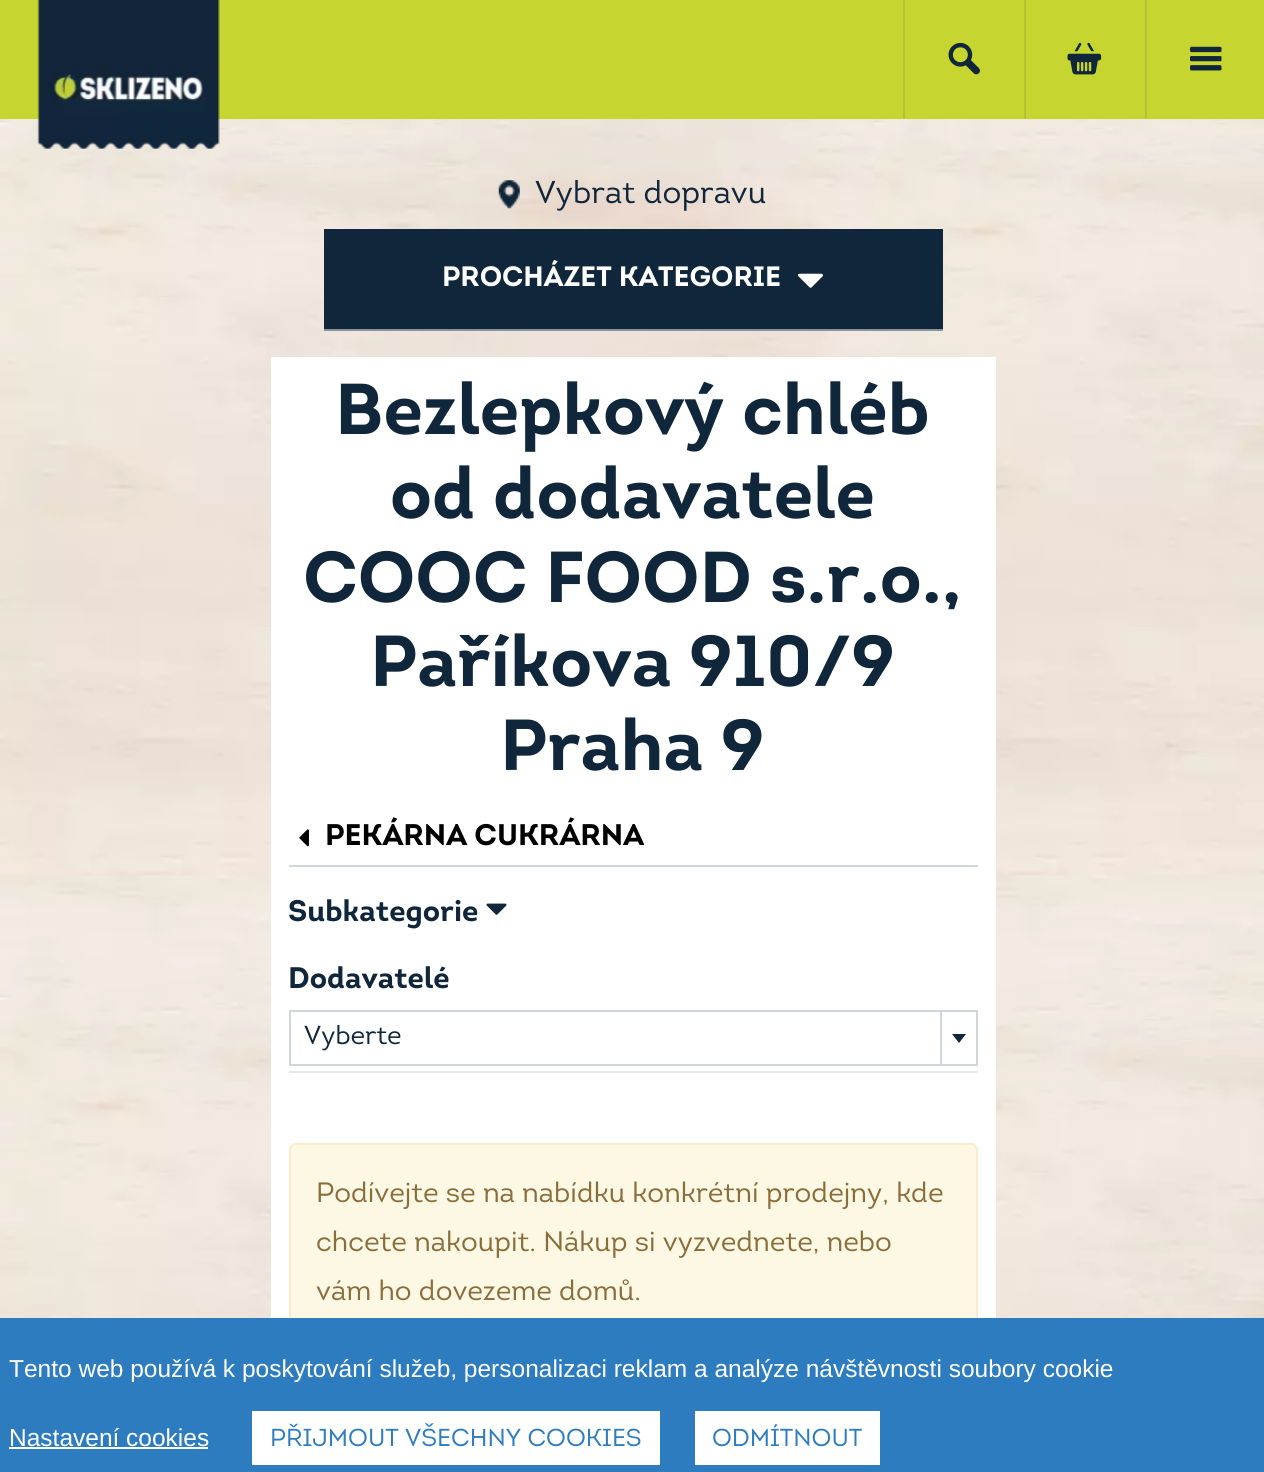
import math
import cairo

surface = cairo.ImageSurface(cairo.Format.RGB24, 1264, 1472)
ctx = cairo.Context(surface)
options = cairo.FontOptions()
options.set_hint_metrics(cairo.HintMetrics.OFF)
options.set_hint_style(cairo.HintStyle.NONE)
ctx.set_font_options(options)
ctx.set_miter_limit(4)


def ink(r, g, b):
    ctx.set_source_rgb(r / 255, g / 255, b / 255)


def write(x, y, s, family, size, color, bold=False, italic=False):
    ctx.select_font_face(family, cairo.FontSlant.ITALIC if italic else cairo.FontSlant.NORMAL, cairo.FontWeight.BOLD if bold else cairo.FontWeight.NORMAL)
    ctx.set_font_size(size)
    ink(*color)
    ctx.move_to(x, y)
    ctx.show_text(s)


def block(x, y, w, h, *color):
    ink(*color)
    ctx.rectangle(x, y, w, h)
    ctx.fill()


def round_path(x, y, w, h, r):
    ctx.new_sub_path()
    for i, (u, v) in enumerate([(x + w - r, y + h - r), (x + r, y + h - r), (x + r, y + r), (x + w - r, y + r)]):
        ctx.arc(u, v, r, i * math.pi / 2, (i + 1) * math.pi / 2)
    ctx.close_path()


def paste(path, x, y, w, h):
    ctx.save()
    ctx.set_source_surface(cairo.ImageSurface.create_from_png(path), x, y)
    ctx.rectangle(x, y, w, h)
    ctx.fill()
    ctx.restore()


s1 = dict(family="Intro", size=31.5, color=(16, 38, 59))
s2 = dict(family="Intro", size=28, color=(255, 255, 255), bold=True)
s3 = dict(family="Intro", size=72, color=(16, 38, 59), bold=True)
s4 = dict(family="Intro", size=29.75, color=(0, 0, 0), bold=True)
s5 = dict(family="Intro", size=29.75, color=(16, 38, 59), bold=True)
s6 = dict(family="Intro", size=26, color=(16, 38, 59))
s7 = dict(family="Intro", size=28, color=(138, 109, 59))
s8 = dict(family="Liberation Sans", size=24.5, color=(255, 255, 255))
s9 = dict(family="Intro", size=24.5, color=(44, 124, 191))

ink(255, 255, 255)
ctx.paint()
paste("pic1.png", 0, 119, 1264, 1199)
block(0, 0, 1264, 119, 199, 213, 48)
paste("pic2.png", 37, 0, 183, 149)
block(903, 0, 2, 119, 180, 195, 50)
paste("pic3.png", 948, 42, 32, 33)
block(1024, 0, 2, 119, 180, 195, 50)
paste("pic4.png", 1067, 42, 35, 33)
block(1145, 0, 2, 119, 180, 195, 50)
paste("pic5.png", 1190, 46, 32, 25)
paste("pic6.png", 498, 180, 22, 29)
write(535, 203, "Vybrat dopravu", **s1)
block(324, 229, 619, 100, 16, 38, 59)
block(324, 329, 619, 2, 136, 147, 157)
write(442, 286, "PROCHÁZET KATEGORIE", **s2)
paste("pic7.png", 798, 273, 25, 15)
block(271, 357, 725, 961, 255, 255, 255)
write(335, 434, "Bezlepkový chléb", **s3)
write(390, 518, "od dodavatele", **s3)
write(303, 602, "COOC FOOD s.r.o.,", **s3)
write(370, 686, "Paříkova 910/9", **s3)
write(500, 770, "Praha 9", **s3)
block(289, 865, 689, 2, 209, 214, 219)
paste("pic8.png", 299, 829, 10, 18)
write(325, 845, "PEKÁRNA CUKRÁRNA", **s4)
write(288, 921, "Subkategorie", **s5)
paste("pic9.png", 486, 903, 21, 12)
write(288, 988, "Dodavatelé", **s5)
block(289, 1071, 689, 2, 229, 232, 237)
ctx.rectangle(290, 1011, 687, 54)
ink(209, 214, 219)
ctx.stroke()
write(304, 1044, "Vyberte", **s6)
block(940, 1012, 2, 54, 209, 214, 219)
ink(16, 38, 59)
ctx.new_path()
ctx.move_to(952, 1034)
ctx.line_to(966, 1034)
ctx.line_to(959, 1043)
ctx.close_path()
ctx.fill()
ink(252, 248, 227)
round_path(290, 1144, 687, 267, 6)
ctx.fill_preserve()
ink(250, 235, 204)
ctx.stroke()
write(316, 1202, "Podívejte se na nabídku konkrétní prodejny, kde", **s7)
write(316, 1251, "chcete nakoupit. Nákup si vyzvednete, nebo", **s7)
write(316, 1300, "vám ho dovezeme domů.", **s7)
block(0, 1318, 1264, 154, 44, 124, 191)
write(9, 1377, "Tento web používá k poskytování služeb, personalizaci reklam a analýze návštěvnosti soubory cookie", **s8)
write(9, 1446, "Nastavení cookies", **s8)
block(9, 1447, 199, 2, 255, 255, 255)
block(252, 1411, 408, 54, 255, 255, 255)
write(270, 1446, "PŘIJMOUT VŠECHNY COOKIES", **s9)
block(695, 1411, 185, 54, 255, 255, 255)
write(712, 1446, "ODMÍTNOUT", **s9)
surface.write_to_png("screenshot.png")
